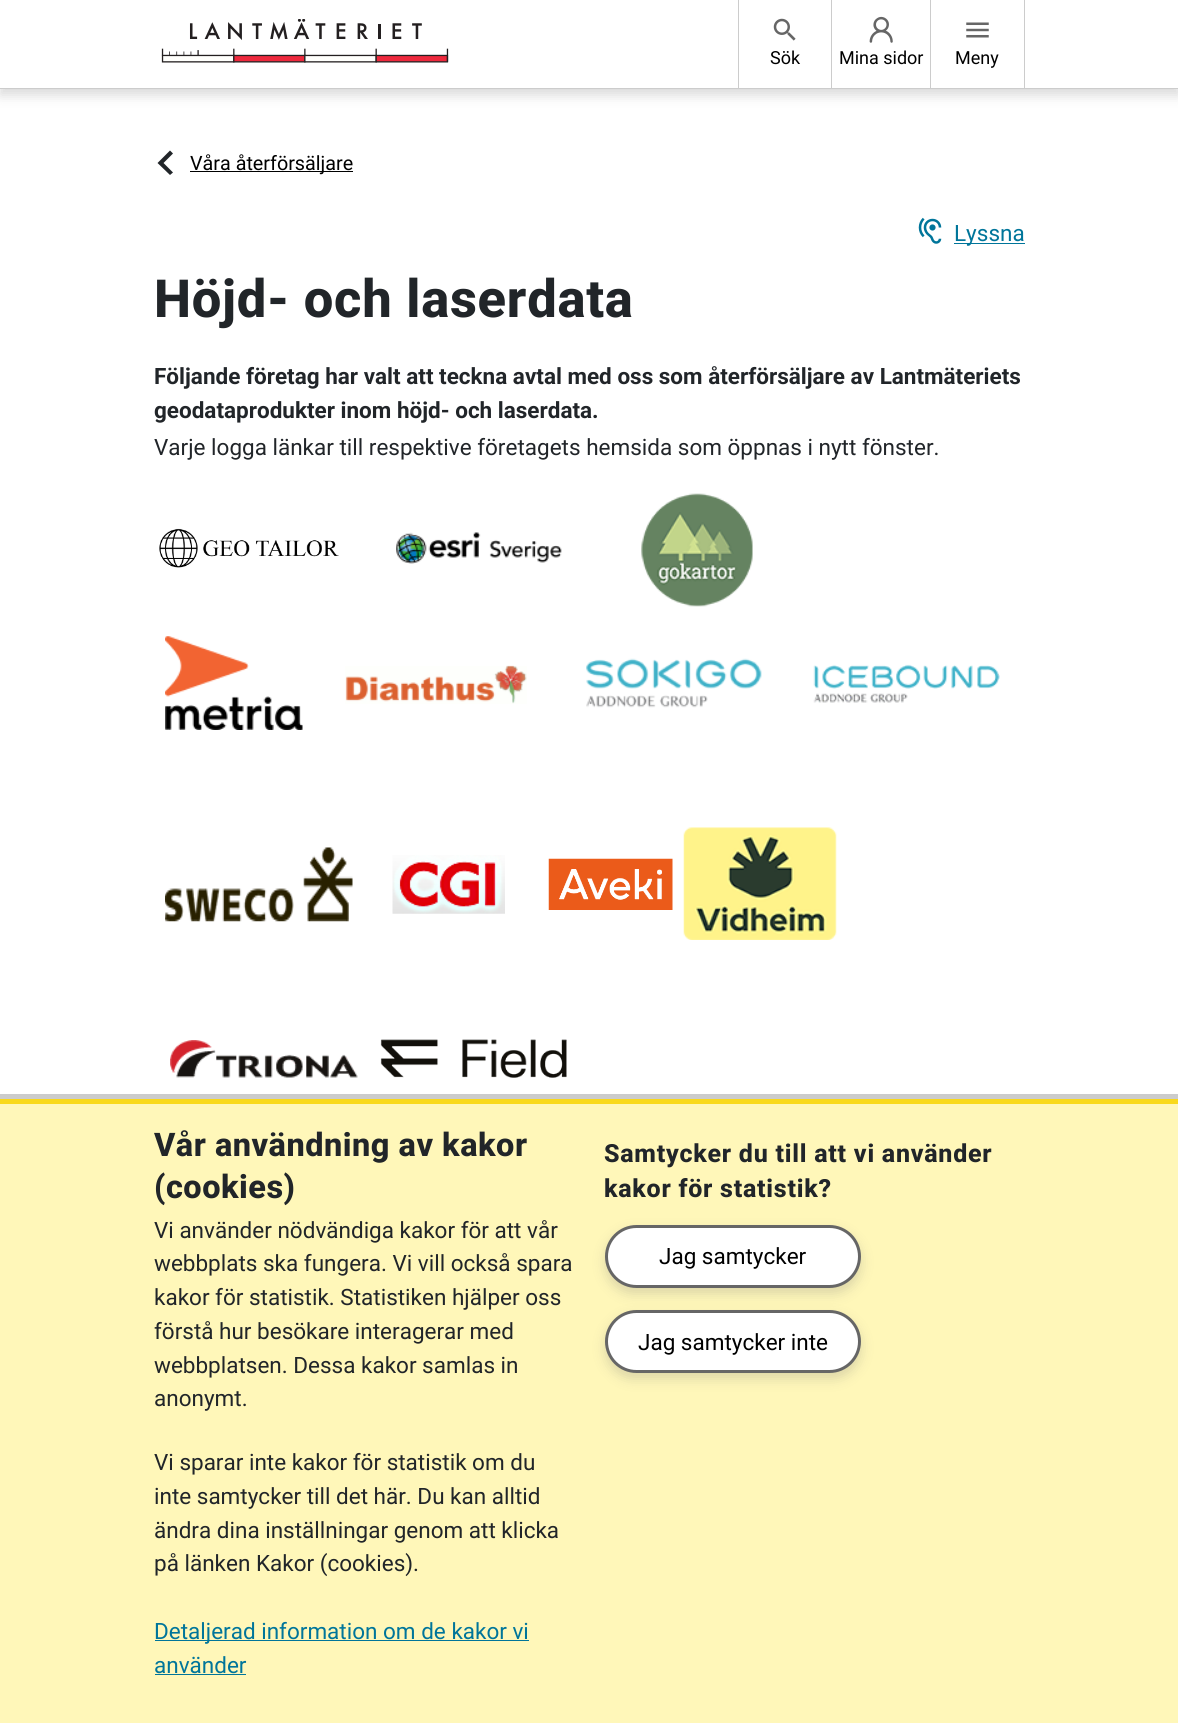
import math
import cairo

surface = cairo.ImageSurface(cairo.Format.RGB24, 1178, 1723)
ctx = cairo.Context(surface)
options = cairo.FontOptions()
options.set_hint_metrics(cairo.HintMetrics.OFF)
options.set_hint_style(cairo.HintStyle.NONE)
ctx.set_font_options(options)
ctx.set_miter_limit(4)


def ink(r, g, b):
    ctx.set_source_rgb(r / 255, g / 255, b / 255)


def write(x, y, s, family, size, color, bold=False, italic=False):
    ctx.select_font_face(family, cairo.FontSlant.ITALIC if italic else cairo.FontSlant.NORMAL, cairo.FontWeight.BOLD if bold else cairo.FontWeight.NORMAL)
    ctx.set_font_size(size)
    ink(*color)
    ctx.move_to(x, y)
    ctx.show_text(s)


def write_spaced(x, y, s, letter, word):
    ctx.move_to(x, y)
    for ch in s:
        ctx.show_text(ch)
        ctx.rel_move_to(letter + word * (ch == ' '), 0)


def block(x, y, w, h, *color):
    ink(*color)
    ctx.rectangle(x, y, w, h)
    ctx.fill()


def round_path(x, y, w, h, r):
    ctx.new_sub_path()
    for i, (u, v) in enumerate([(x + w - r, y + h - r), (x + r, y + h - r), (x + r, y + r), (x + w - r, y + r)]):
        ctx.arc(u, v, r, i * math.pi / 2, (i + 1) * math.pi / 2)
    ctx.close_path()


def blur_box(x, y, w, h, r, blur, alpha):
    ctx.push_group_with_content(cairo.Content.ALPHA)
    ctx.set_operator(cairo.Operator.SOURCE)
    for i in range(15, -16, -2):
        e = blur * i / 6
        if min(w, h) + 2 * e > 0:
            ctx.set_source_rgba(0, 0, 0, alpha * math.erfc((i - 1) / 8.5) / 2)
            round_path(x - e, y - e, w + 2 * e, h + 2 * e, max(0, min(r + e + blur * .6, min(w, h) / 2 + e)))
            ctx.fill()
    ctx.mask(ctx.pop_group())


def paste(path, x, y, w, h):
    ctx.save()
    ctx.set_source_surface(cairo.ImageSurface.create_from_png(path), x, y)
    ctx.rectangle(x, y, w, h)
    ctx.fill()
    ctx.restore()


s1 = dict(family="Roboto", size=18, color=(0, 0, 0))
s2 = dict(family="Roboto", size=19.75, color=(0, 0, 0))
s3 = dict(family="Roboto", size=22.5, color=(0, 117, 154))
s4 = dict(family="Roboto", size=22.5, color=(33, 37, 41), bold=True)
s5 = dict(family="Roboto", size=22.5, color=(33, 37, 41))
s6 = dict(family="Roboto", size=22.5, color=(0, 0, 0))

ink(255, 255, 255)
ctx.paint()
ink(102, 102, 102)
blur_box(0, 6, 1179, 89, 0, 6, 0.25)
block(0, 88, 1178, 1, 204, 204, 204)
block(0, 0, 1178, 88, 255, 255, 255)
paste("pic1.png", 161, 19, 288, 44)
block(738, 0, 1, 88, 204, 204, 204)
paste("pic2.png", 773, 18, 23, 23)
write(770, 64, "Sök", **s1)
block(831, 0, 1, 88, 204, 204, 204)
paste("pic3.png", 869, 16, 24, 27)
write(839, 64, "Mina sidor", **s1)
block(1024, 0, 1, 88, 204, 204, 204)
block(930, 0, 1, 88, 204, 204, 204)
paste("pic4.png", 966, 22, 23, 16)
write(955, 64, "Meny", **s1)
ink(33, 37, 41)
ctx.new_path()
ctx.move_to(173, 153.5)
ctx.line_to(170, 150.5)
ctx.line_to(157.5, 163)
ctx.line_to(170, 175)
ctx.line_to(173, 172.5)
ctx.line_to(163.5, 163)
ctx.close_path()
ctx.fill()
block(190, 171, 163, 1, 0, 0, 0)
write(190, 170, "Våra återförsäljare", **s2)
paste("pic5.png", 918, 217, 24, 27)
block(954, 243, 71, 1, 0, 117, 154)
write(954, 241, "Lyssna", **s3)
ctx.select_font_face("Roboto ExtraBold")
ctx.set_font_size(52.5)
ink(33, 37, 41)
write_spaced(154, 317, "Höjd- och laserdata", 0.75, 0)
write(154, 384, "Följande företag har valt att teckna avtal med oss som återförsäljare av Lantmäteriets", **s4)
write(154, 418, "geodataprodukter inom höjd- och laserdata.", **s4)
write(154, 455, "Varje logga länkar till respektive företagets hemsida som öppnas i nytt fönster.", **s5)
paste("pic6.png", 159, 528, 180, 40)
paste("pic7.png", 396, 532, 166, 32)
paste("pic8.png", 641, 493, 112, 114)
paste("pic9.png", 165, 636, 138, 94)
paste("pic10.png", 345, 665, 182, 39)
paste("pic11.png", 586, 658, 176, 50)
paste("pic12.png", 813, 664, 187, 39)
paste("pic13.png", 165, 847, 188, 75)
paste("pic14.png", 392, 855, 113, 59)
paste("pic15.png", 548, 858, 125, 52)
paste("pic16.png", 683, 827, 154, 113)
paste("pic17.png", 170, 1040, 188, 38)
paste("pic18.png", 380, 1039, 187, 39)
ink(204, 204, 204)
ctx.set_fill_rule(cairo.FillRule.EVEN_ODD)
ctx.new_path()
ctx.move_to(-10, 1094)
ctx.line_to(-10, 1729)
ctx.line_to(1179, 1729)
ctx.line_to(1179, 1094)
ctx.close_path()
ctx.move_to(0, 1099)
ctx.line_to(0, 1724)
ctx.line_to(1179, 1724)
ctx.line_to(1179, 1099)
ctx.close_path()
ctx.fill()
block(0, 1104, 1178, 619, 255, 247, 185)
block(0, 1099, 1178, 5, 249, 217, 28)
ctx.select_font_face("Roboto ExtraBold")
ctx.set_font_size(32.5)
ink(33, 37, 41)
write_spaced(154, 1156, "Vår användning av kakor", 0.5, 0)
write_spaced(154, 1198, "(cookies)", 0.5, 0)
write(154, 1238, "Vi använder nödvändiga kakor för att vår", **s5)
write(154, 1271, "webbplats ska fungera. Vi vill också spara", **s5)
write(154, 1305, "kakor för statistik. Statistiken hjälper oss", **s5)
write(154, 1339, "förstå hur besökare interagerar med", **s5)
write(154, 1373, "webbplatsen. Dessa kakor samlas in", **s5)
write(154, 1406, "anonymt.", **s5)
write(154, 1470, "Vi sparar inte kakor för statistik om du", **s5)
write(154, 1504, "inte samtycker till det här. Du kan alltid", **s5)
write(154, 1538, "ändra dina inställningar genom att klicka", **s5)
write(154, 1571, "på länken Kakor (cookies).", **s5)
block(155, 1640, 374, 1, 0, 117, 154)
write(154, 1639, "Detaljerad information om de kakor vi", **s3)
write(154, 1673, "använder", **s3)
block(155, 1674, 91, 1, 0, 117, 154)
ctx.select_font_face("Roboto ExtraBold")
ctx.set_font_size(25)
ink(33, 37, 41)
write_spaced(604, 1162, "Samtycker du till att vi använder", 0.75, 0)
write_spaced(604, 1197, "kakor för statistik?", 0.75, 0)
ink(117, 117, 117)
blur_box(605, 1231, 256, 63, 31.5, 6, 0.25)
ink(255, 255, 255)
round_path(606.5, 1226.5, 253, 60, 30)
ctx.fill_preserve()
ink(102, 102, 102)
ctx.set_line_width(3)
ctx.stroke()
write(659, 1264, "Jag samtycker", **s6)
ink(117, 117, 117)
blur_box(605, 1316, 256, 63, 31.5, 6, 0.25)
ink(255, 255, 255)
round_path(606.5, 1311.5, 253, 60, 30)
ctx.fill_preserve()
ink(102, 102, 102)
ctx.stroke()
write(638, 1350, "Jag samtycker inte", **s6)
surface.write_to_png("screenshot.png")
